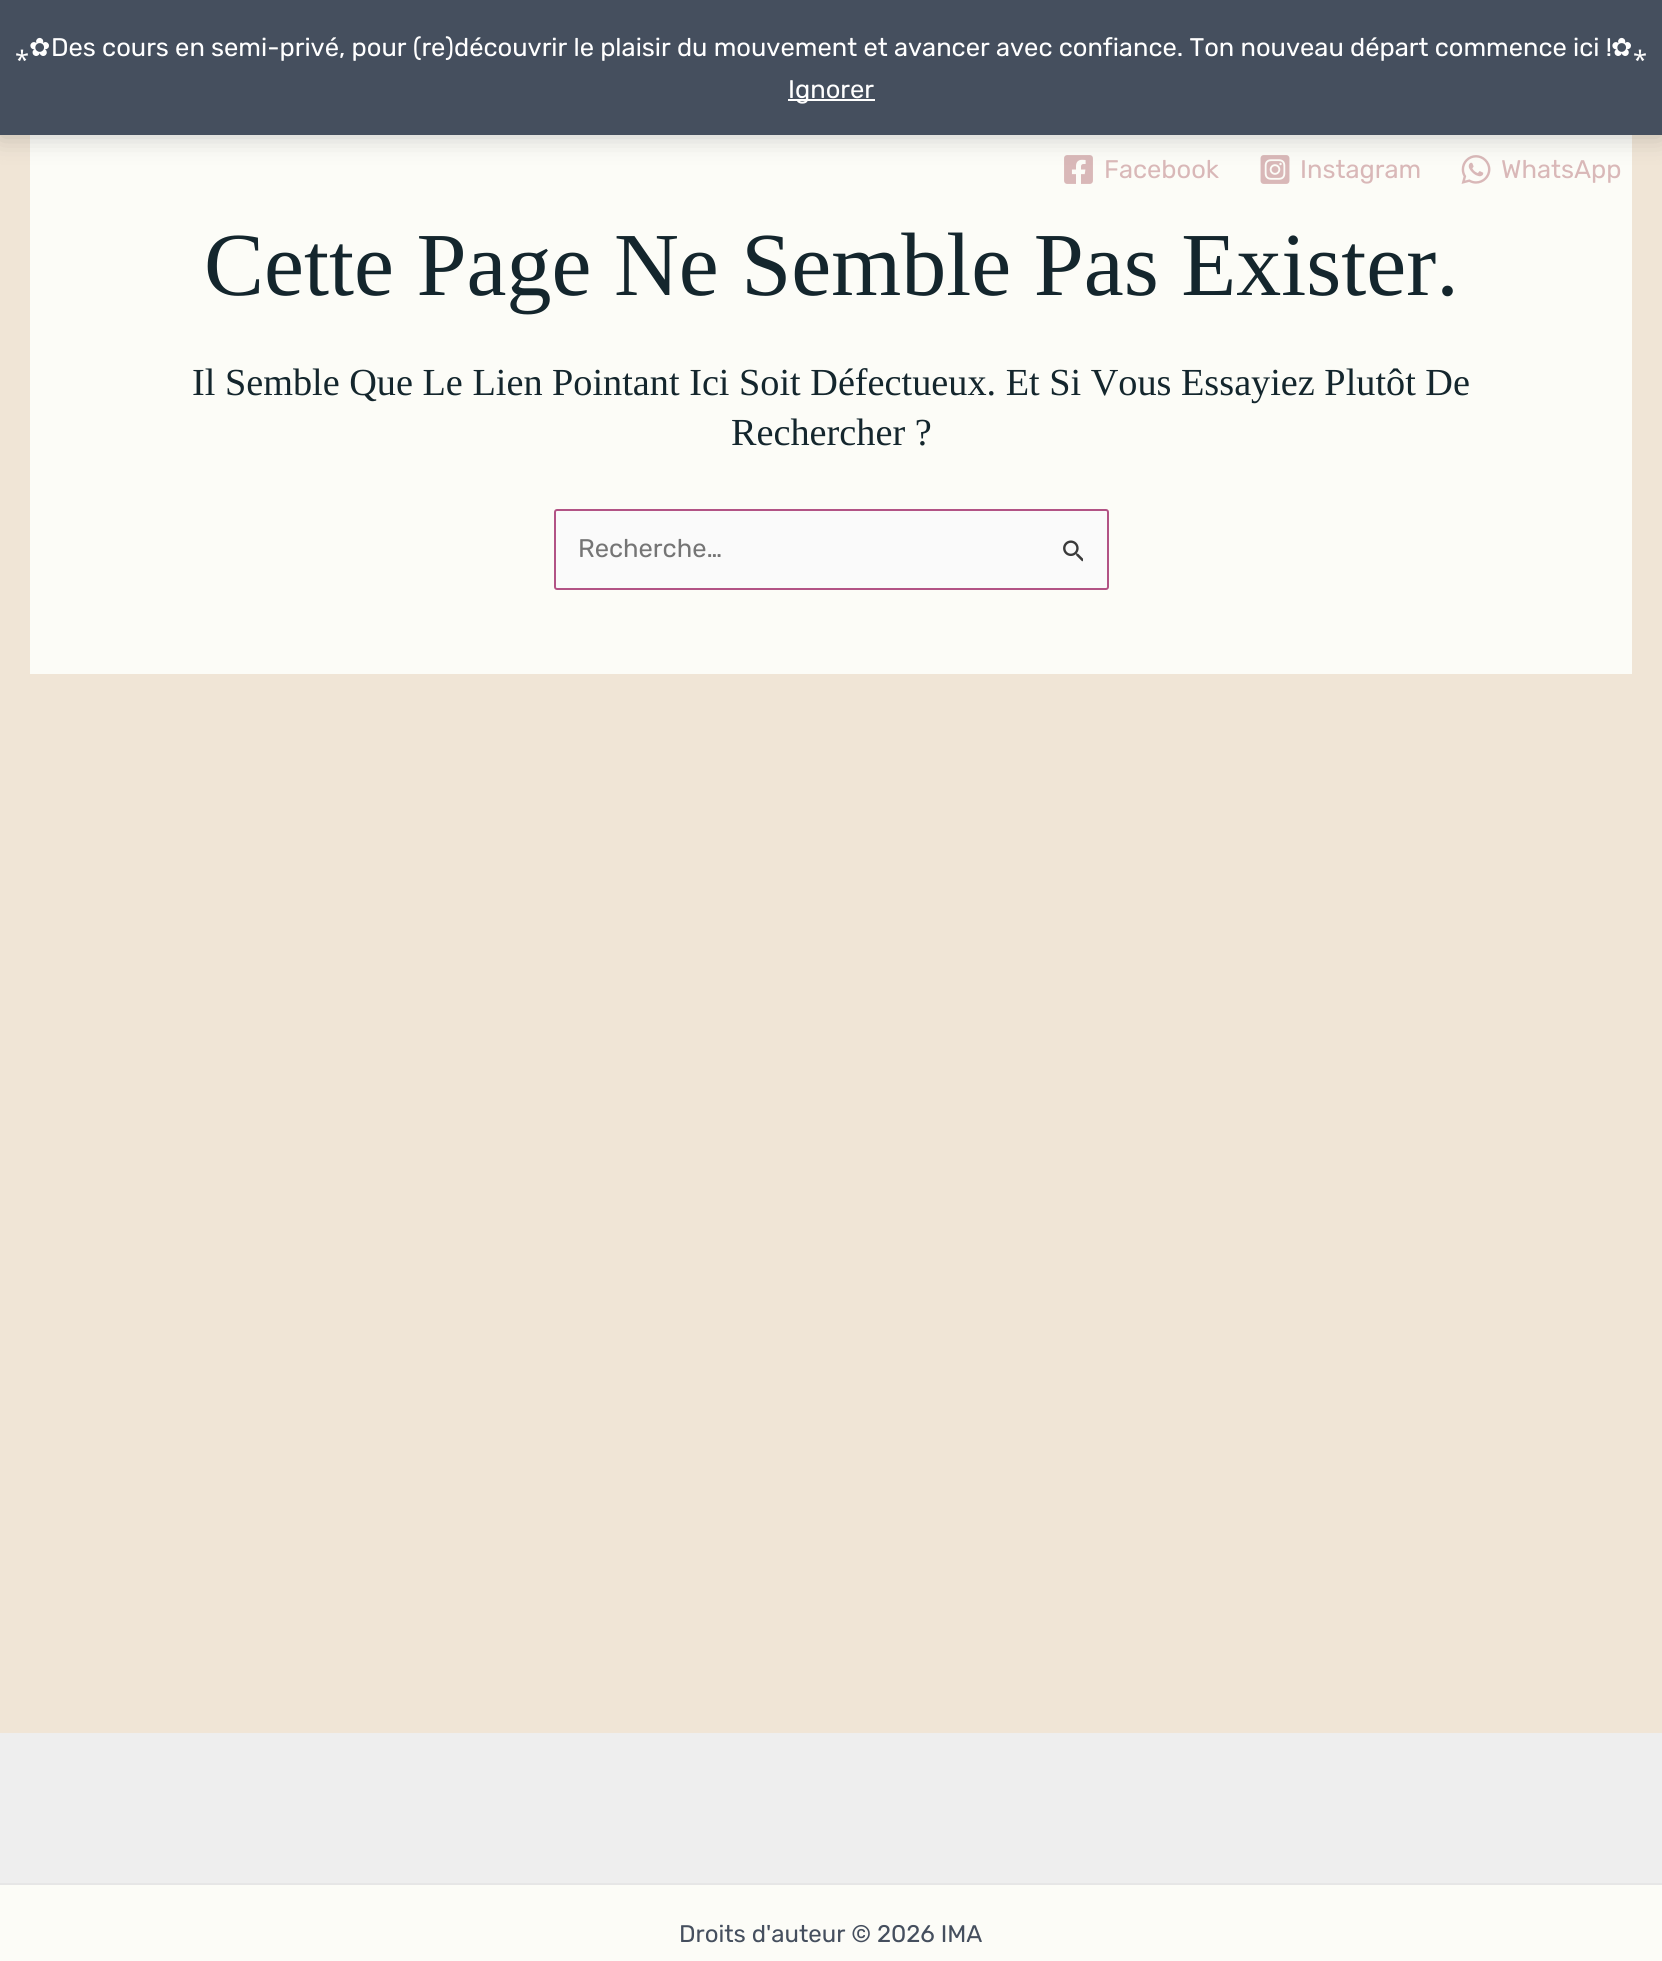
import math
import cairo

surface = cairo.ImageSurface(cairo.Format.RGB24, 1662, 1961)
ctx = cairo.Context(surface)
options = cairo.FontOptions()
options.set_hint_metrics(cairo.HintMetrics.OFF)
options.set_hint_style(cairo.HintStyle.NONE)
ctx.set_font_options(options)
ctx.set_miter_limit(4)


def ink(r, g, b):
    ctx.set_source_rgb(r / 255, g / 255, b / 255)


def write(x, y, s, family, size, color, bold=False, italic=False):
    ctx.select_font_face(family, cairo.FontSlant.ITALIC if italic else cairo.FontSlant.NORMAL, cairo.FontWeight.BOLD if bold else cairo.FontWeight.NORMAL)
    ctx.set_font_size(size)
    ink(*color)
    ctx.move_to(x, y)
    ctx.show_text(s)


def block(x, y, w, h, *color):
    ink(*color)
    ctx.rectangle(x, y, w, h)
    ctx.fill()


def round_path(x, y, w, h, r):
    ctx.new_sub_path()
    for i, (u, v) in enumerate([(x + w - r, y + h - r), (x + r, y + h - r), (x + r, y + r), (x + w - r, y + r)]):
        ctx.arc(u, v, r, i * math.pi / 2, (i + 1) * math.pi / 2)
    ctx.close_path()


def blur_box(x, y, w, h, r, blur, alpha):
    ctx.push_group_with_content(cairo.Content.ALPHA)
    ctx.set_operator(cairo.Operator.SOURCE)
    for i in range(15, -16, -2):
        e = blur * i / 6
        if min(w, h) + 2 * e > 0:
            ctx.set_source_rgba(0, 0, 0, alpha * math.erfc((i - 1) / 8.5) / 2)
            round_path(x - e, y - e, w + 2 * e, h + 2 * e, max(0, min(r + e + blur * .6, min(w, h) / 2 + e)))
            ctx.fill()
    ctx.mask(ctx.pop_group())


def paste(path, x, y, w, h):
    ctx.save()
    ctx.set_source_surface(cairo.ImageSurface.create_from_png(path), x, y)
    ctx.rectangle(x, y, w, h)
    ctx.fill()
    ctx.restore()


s1 = dict(family="Noto Sans", size=25.5, color=(255, 255, 255))
s2 = dict(family="DejaVu Sans", size=25.5, color=(255, 255, 255))
s3 = dict(family="Rubik", size=25.5, color=(255, 255, 255))
s4 = dict(family="Rubik", size=25.5, color=(217, 184, 184))
s5 = dict(family="Liberation Serif", size=90, color=(20, 38, 45))
s6 = dict(family="Liberation Serif", size=38.25, color=(20, 38, 45))
s7 = dict(family="Rubik", size=25.5, color=(117, 117, 117))
s8 = dict(family="Rubik", size=24, color=(69, 79, 94))

ink(240, 229, 214)
ctx.paint()
block(30, 135, 1602, 539, 252, 252, 247)
paste("pic1.png", 1064, 155, 29, 29)
paste("pic2.png", 1260, 155, 30, 29)
paste("pic3.png", 1461, 155, 30, 29)
ink(0, 0, 0)
blur_box(0, 2, 1662, 135, 0, 13, 0.2)
block(0, 0, 1662, 135, 69, 79, 94)
write(15, 56, "⁎", **s1)
write(29, 56, "✿", **s2)
write(51, 56, "Des cours en semi-privé, pour (re)découvrir le plaisir du mouvement et avancer avec confiance. Ton nouveau départ commence ici !", **s3)
write(1611, 56, "✿", **s2)
write(1633, 56, "⁎", **s1)
block(788, 99, 87, 2, 255, 255, 255)
write(788, 98, "Ignorer", **s3)
write(1104, 178, "Facebook", **s4)
write(1300, 178, "Instagram", **s4)
write(1501, 178, "WhatsApp", **s4)
write(204, 295, "Cette Page Ne Semble Pas Exister.", **s5)
write(192, 395, "Il Semble Que Le Lien Pointant Ici Soit Défectueux. Et Si Vous Essayiez Plutôt De", **s6)
write(731, 445, "Rechercher ?", **s6)
ink(250, 250, 250)
round_path(555, 510, 553, 79, 2)
ctx.fill_preserve()
ink(178, 83, 133)
ctx.stroke()
write(578, 557, "Recherche…", **s7)
paste("pic4.png", 1063, 540, 20, 22)
block(0, 1733, 1662, 150, 238, 238, 238)
block(0, 1885, 1662, 76, 252, 252, 247)
block(0, 1883, 1662, 2, 230, 230, 230)
write(679, 1942, "Droits d'auteur © 2026 IMA", **s8)
surface.write_to_png("screenshot.png")
